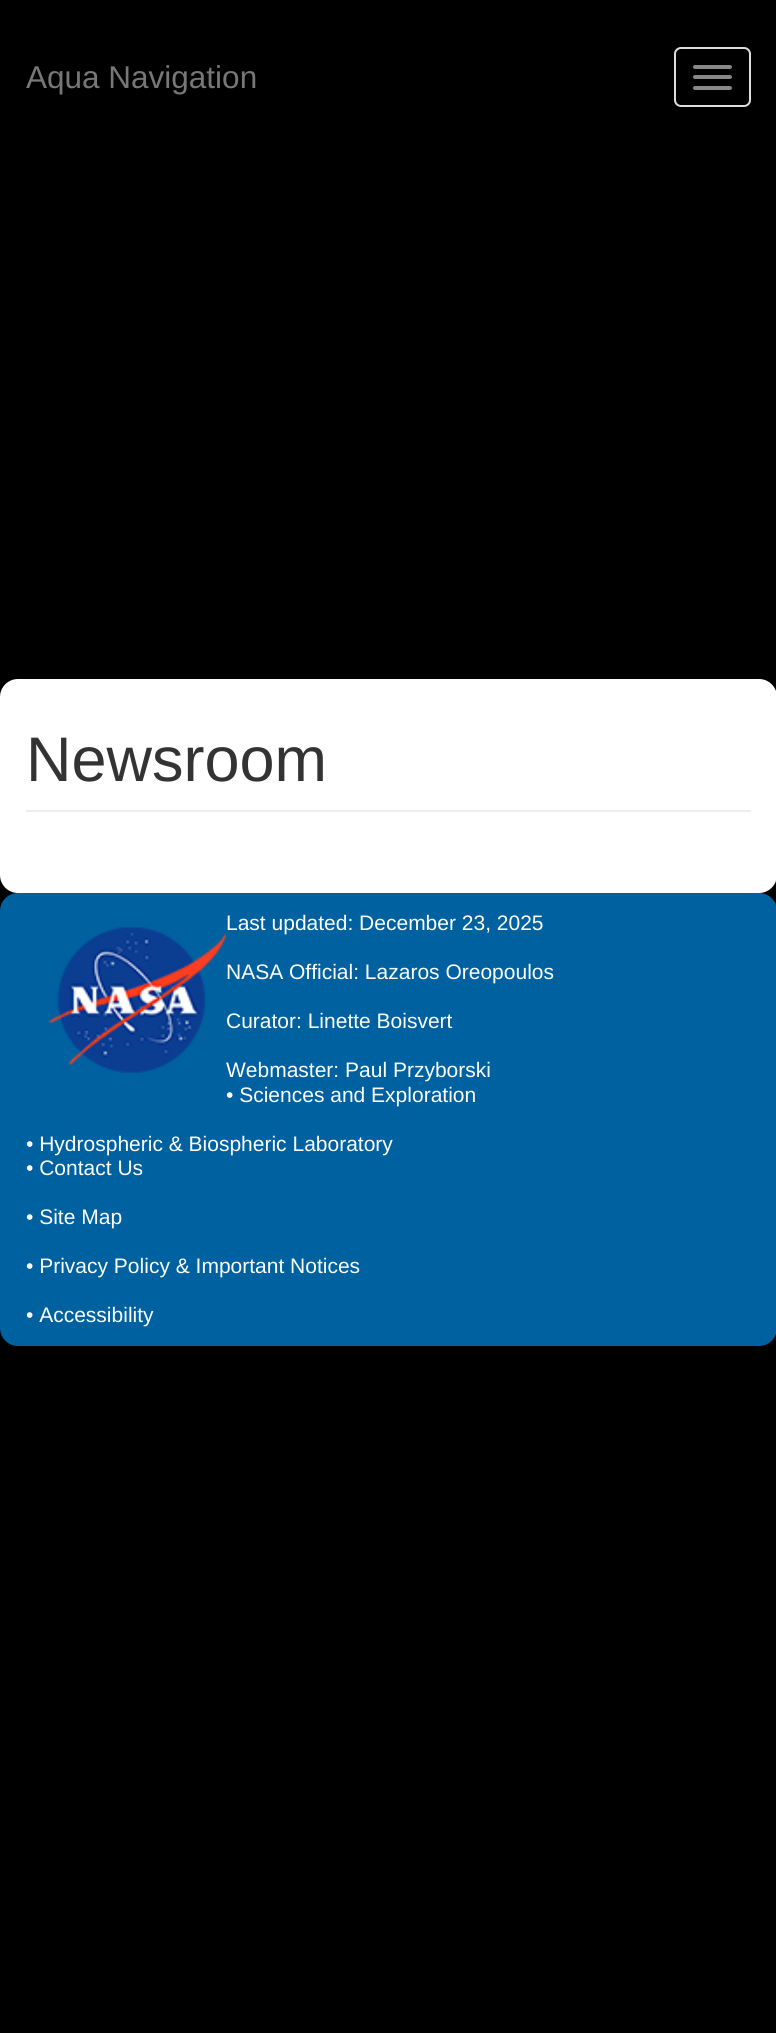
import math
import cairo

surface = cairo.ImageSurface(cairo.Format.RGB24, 776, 2033)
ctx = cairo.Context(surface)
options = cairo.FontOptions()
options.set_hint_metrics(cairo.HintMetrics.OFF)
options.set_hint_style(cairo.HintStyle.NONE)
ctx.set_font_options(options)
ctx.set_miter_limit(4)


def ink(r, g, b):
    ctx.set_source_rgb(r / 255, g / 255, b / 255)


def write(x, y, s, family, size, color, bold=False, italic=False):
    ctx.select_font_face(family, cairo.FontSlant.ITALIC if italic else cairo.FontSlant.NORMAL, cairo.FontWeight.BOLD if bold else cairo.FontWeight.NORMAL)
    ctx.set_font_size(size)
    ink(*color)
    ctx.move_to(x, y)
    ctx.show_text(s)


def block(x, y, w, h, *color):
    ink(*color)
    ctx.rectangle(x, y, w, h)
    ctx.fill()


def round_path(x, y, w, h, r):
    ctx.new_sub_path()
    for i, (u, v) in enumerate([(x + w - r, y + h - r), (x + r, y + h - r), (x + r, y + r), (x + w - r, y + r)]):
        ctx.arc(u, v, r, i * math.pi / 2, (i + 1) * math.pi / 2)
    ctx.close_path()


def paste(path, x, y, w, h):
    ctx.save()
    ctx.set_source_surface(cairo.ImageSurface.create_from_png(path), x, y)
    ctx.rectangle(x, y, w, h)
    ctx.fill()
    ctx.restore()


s1 = dict(family="Liberation Sans", size=31.5, color=(119, 119, 119))
s2 = dict(family="Liberation Sans", size=63, color=(51, 51, 51))
s3 = dict(family="Liberation Sans", size=21, color=(255, 255, 255))

ink(0, 0, 0)
ctx.paint()
write(26, 88, "Aqua Navigation", **s1)
round_path(675, 48, 75, 58, 6)
ink(221, 221, 221)
ctx.stroke()
ink(136, 136, 136)
round_path(693, 65, 39, 4, 2)
ctx.fill()
round_path(693, 75, 39, 4, 2)
ctx.fill()
round_path(693, 86, 39, 4, 2)
ctx.fill()
ink(255, 255, 255)
round_path(0, 679, 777, 214, 18)
ctx.fill()
block(26, 810, 725, 2, 238, 238, 238)
write(26, 781, "Newsroom", **s2)
ink(0, 97, 160)
round_path(0, 893, 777, 453, 18)
ctx.fill()
paste("pic1.png", 49, 927, 177, 146)
write(226, 930, "Last updated: December 23, 2025", **s3)
write(226, 979, "NASA Official: Lazaros Oreopoulos", **s3)
write(226, 1028, "Curator: Linette Boisvert", **s3)
write(226, 1077, "Webmaster: Paul Przyborski", **s3)
write(226, 1102, "• Sciences and Exploration", **s3)
write(26, 1151, "• Hydrospheric & Biospheric Laboratory", **s3)
write(26, 1175, "• Contact Us", **s3)
write(26, 1224, "• Site Map", **s3)
write(26, 1273, "• Privacy Policy & Important Notices", **s3)
write(26, 1322, "• Accessibility", **s3)
surface.write_to_png("screenshot.png")
